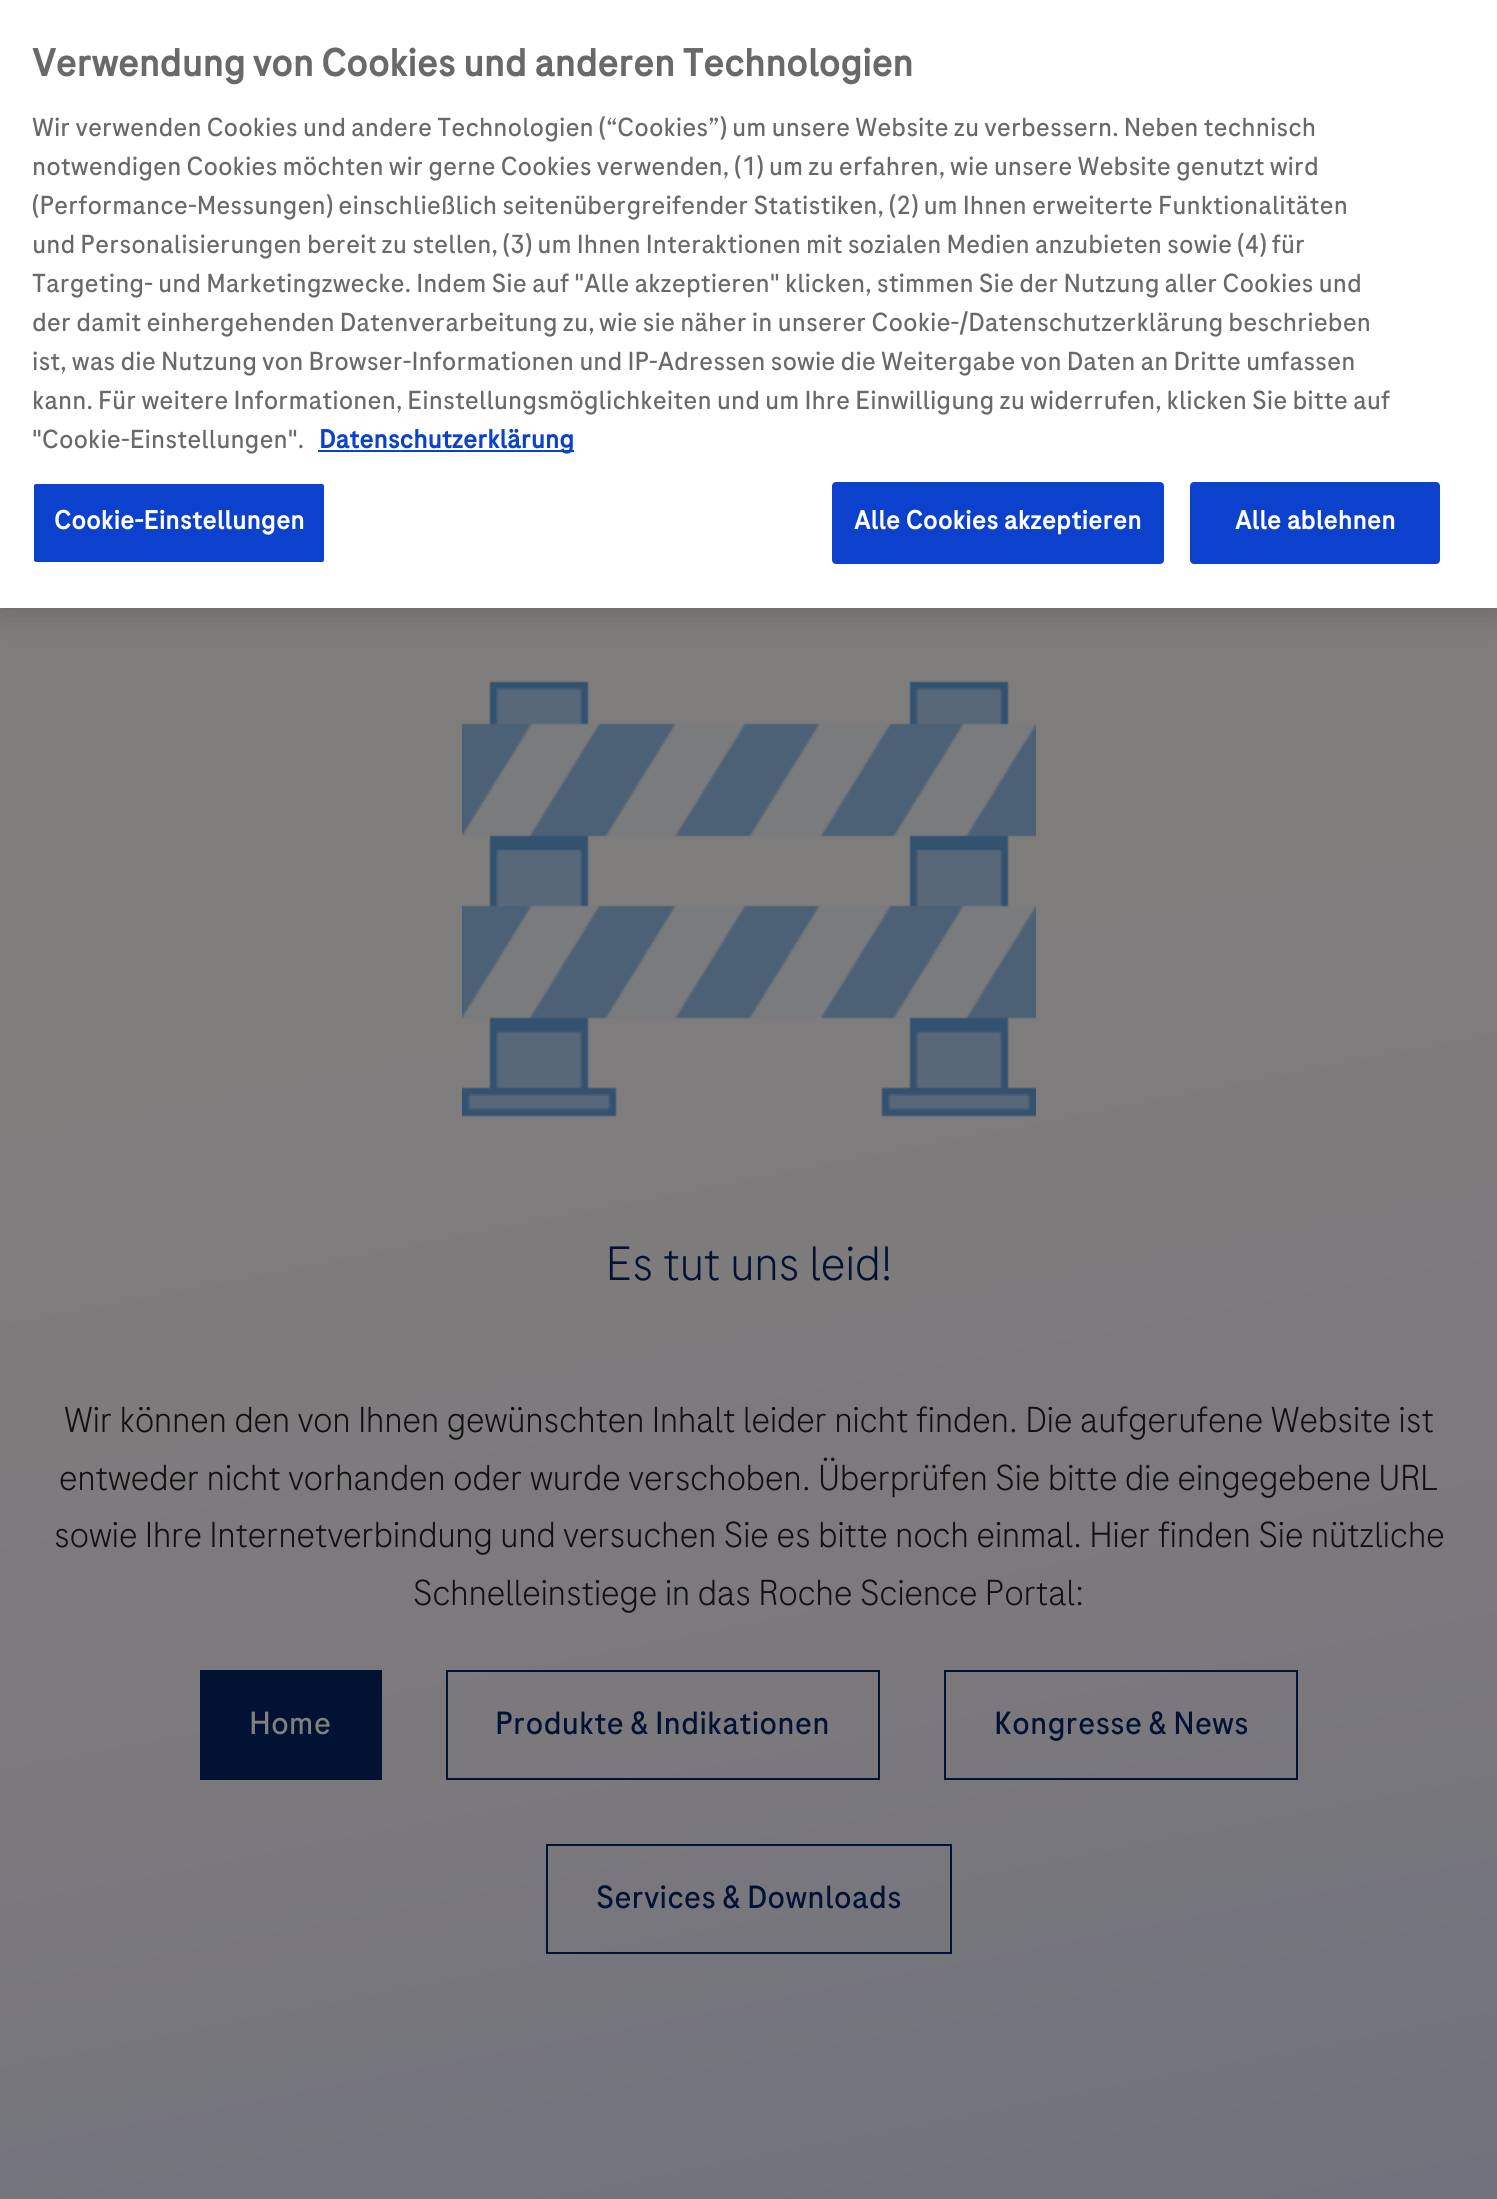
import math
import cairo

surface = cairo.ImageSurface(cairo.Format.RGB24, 1497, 2199)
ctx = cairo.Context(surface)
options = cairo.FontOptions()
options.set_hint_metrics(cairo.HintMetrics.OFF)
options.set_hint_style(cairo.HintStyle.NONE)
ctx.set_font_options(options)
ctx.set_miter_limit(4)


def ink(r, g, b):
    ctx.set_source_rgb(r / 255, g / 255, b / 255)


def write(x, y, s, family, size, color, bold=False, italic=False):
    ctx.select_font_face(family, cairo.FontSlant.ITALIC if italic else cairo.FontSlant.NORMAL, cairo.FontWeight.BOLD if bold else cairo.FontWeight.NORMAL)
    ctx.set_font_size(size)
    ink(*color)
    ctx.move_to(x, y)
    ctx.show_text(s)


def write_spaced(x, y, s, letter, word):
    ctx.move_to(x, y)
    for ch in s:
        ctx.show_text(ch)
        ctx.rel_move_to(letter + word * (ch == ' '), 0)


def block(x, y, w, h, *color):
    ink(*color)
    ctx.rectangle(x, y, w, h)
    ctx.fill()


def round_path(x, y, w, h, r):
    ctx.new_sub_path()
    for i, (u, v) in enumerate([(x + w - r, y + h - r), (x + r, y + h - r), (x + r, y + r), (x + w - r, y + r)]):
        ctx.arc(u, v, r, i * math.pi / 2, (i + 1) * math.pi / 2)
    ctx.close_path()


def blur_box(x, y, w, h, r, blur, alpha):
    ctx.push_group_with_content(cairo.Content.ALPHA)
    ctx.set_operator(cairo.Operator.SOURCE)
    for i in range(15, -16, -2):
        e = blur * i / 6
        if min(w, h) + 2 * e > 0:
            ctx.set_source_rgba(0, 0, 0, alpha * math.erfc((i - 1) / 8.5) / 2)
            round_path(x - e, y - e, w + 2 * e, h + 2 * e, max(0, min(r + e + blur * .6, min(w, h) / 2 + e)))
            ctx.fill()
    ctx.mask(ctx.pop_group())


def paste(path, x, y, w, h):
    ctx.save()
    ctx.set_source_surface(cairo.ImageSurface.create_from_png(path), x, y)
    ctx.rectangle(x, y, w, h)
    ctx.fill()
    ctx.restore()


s1 = dict(family="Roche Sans", size=38.4, color=(105, 105, 105), bold=True)
s2 = dict(family="Roche Sans", size=26.02, color=(105, 105, 105))
s3 = dict(family="Roche Sans", size=26.02, color=(11, 65, 205), bold=True)
s4 = dict(family="Roche Sans Light", size=48, color=(1, 18, 51))
s5 = dict(family="Roche Sans Light", size=36, color=(17, 16, 16))
s6 = dict(family="Roche Sans", size=32, color=(128, 128, 128))
s7 = dict(family="Roche Sans", size=32, color=(1, 18, 51))

ink(255, 255, 255)
ctx.paint()
gradient = cairo.LinearGradient(533, 148, 977, 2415)
gradient.add_color_stop_rgba(0.32, 0.498, 0.49, 0.486, 1)
gradient.add_color_stop_rgba(0.68, 0.486, 0.475, 0.49, 1)
gradient.add_color_stop_rgba(1, 0.424, 0.439, 0.486, 1)
ctx.set_source(gradient)
ctx.rectangle(0, 608, 1497, 1591)
ctx.fill()
ink(0, 0, 0)
blur_box(0, 0, 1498, 608, 0, 18, 0.2)
block(0, 0, 1497, 608, 255, 255, 255)
write(32, 76, "Verwendung von Cookies und anderen Technologien", **s1)
write(32, 136, "Wir verwenden Cookies und andere Technologien (“Cookies”) um unsere Website zu verbessern. Neben technisch", **s2)
write(32, 175, "notwendigen Cookies möchten wir gerne Cookies verwenden, (1) um zu erfahren, wie unsere Website genutzt wird", **s2)
write(32, 214, "(Performance-Messungen) einschließlich seitenübergreifender Statistiken, (2) um Ihnen erweiterte Funktionalitäten", **s2)
write(32, 253, "und Personalisierungen bereit zu stellen, (3) um Ihnen Interaktionen mit sozialen Medien anzubieten sowie (4) für", **s2)
write(32, 292, "Targeting- und Marketingzwecke. Indem Sie auf \"Alle akzeptieren\" klicken, stimmen Sie der Nutzung aller Cookies und", **s2)
write(32, 331, "der damit einhergehenden Datenverarbeitung zu,", **s2)
write(599, 331, "wie sie näher in unserer Cookie-/Datenschutzerklärung beschrieben", **s2)
write(32, 370, "ist, was die Nutzung von Browser-Informationen und IP-Adressen sowie die Weitergabe von Daten an Dritte umfassen", **s2)
write(32, 409, "kann. Für weitere Informationen, Einstellungsmöglichkeiten und um Ihre Einwilligung zu widerrufen, klicken Sie bitte auf", **s2)
write(32, 448, "\"Cookie-Einstellungen\".", **s2)
block(318, 450, 256, 2, 11, 65, 205)
write(319, 448, "Datenschutzerklärung", **s3)
round_path(33, 483, 292, 80, 3)
ctx.fill_preserve()
ink(255, 255, 255)
ctx.stroke()
write_spaced(54, 529, "Cookie-Einstellungen", 0.25, 0)
ink(11, 65, 205)
round_path(833, 483, 330, 80, 3)
ctx.fill_preserve()
ctx.stroke()
ink(255, 255, 255)
write_spaced(854, 529, "Alle Cookies akzeptieren", 0.25, 0)
ink(11, 65, 205)
round_path(1191, 483, 248, 80, 3)
ctx.fill_preserve()
ctx.stroke()
ink(255, 255, 255)
write_spaced(1235, 529, "Alle ablehnen", 0.25, 0)
paste("pic1.png", 462, 681, 574, 436)
write(606, 1280, "Es tut uns leid!", **s4)
write(64, 1432, "Wir können den von Ihnen gewünschten Inhalt leider nicht finden. Die aufgerufene Website ist", **s5)
write(59, 1490, "entweder nicht vorhanden oder wurde verschoben. Überprüfen Sie bitte die eingegebene URL", **s5)
write(54, 1547, "sowie Ihre Internetverbindung und versuchen Sie es bitte noch einmal. Hier finden Sie nützliche", **s5)
write(413, 1605, "Schnelleinstiege in das Roche Science Portal:", **s5)
block(200, 1670, 182, 110, 1, 18, 51)
write(249, 1734, "Home", **s6)
ctx.rectangle(447, 1671, 432, 108)
ink(1, 18, 51)
ctx.stroke()
write(495, 1734, "Produkte & Indikationen", **s7)
ctx.rectangle(945, 1671, 352, 108)
ctx.stroke()
write(994, 1734, "Kongresse & News", **s7)
ctx.rectangle(547, 1845, 404, 108)
ctx.stroke()
write(596, 1908, "Services & Downloads", **s7)
surface.write_to_png("screenshot.png")
